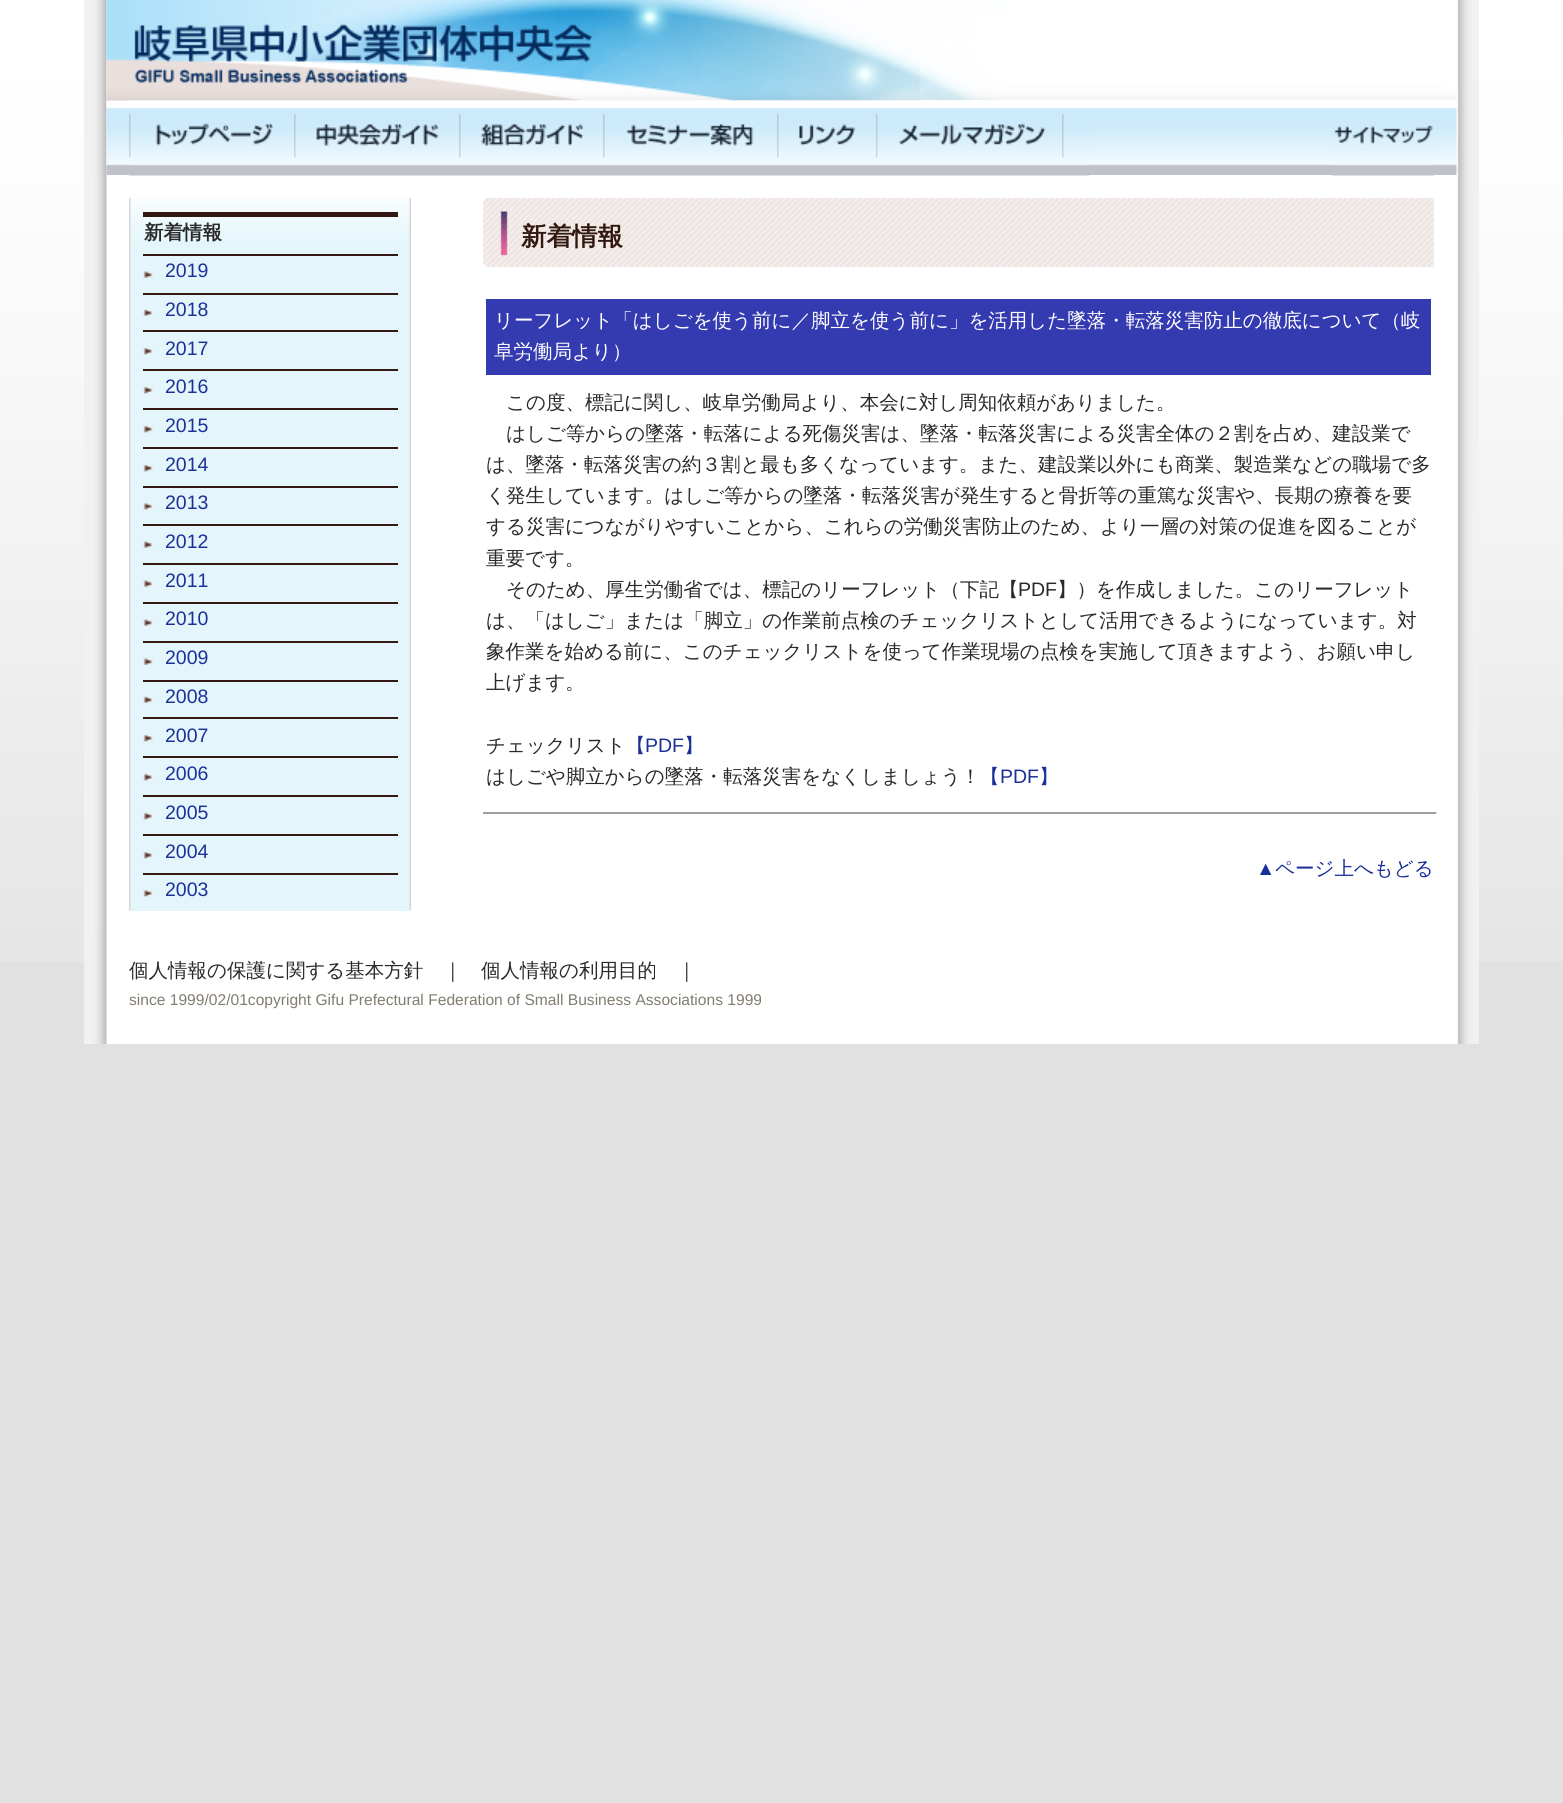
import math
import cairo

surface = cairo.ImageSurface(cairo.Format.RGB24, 1563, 1803)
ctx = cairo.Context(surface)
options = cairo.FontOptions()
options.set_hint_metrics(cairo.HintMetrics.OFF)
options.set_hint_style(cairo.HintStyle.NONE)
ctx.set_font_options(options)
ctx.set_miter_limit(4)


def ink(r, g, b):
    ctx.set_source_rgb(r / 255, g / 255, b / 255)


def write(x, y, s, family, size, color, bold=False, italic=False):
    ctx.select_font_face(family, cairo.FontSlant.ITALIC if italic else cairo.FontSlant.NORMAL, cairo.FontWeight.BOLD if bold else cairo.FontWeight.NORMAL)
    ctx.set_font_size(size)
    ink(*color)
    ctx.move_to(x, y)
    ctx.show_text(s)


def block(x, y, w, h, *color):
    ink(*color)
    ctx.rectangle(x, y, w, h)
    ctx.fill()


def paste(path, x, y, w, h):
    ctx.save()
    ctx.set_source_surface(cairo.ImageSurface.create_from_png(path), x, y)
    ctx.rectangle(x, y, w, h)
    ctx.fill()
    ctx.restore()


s1 = dict(family="WenQuanYi Zen Hei", size=19.5, color=(41, 41, 41), bold=True)
s2 = dict(family="Liberation Sans", size=19.5, color=(27, 48, 153))
s3 = dict(family="WenQuanYi Zen Hei", size=25.5, color=(51, 23, 17), bold=True)
s4 = dict(family="WenQuanYi Zen Hei Medium", size=19.5, color=(255, 255, 255))
s5 = dict(family="WenQuanYi Zen Hei Medium", size=19.5, color=(41, 41, 41))
s6 = dict(family="Liberation Sans", size=19.5, color=(41, 41, 41))
s7 = dict(family="WenQuanYi Zen Hei Medium", size=19.5, color=(27, 48, 153))
s8 = dict(family="Liberation Sans", size=15.6, color=(130, 124, 113))

ink(225, 225, 225)
ctx.paint()
paste("pic1.png", 0, 0, 1563, 962)
paste("pic2.png", 84, 0, 1395, 175)
paste("pic3.png", 106, 0, 1351, 101)
paste("pic5.png", 106, 100, 1351, 75)
paste("pic4.png", 106, 0, 814, 101)
paste("pic14.png", 84, 175, 1395, 758)
paste("pic6.png", 129, 100, 165, 76)
paste("pic7.png", 294, 100, 165, 76)
paste("pic8.png", 459, 100, 144, 76)
paste("pic9.png", 603, 100, 174, 76)
paste("pic10.png", 777, 100, 99, 76)
paste("pic11.png", 876, 100, 186, 76)
paste("pic12.png", 1062, 114, 27, 62)
paste("pic13.png", 1332, 125, 102, 51)
block(129, 910, 282, 1, 228, 246, 251)
paste("pic15.png", 129, 198, 282, 713)
block(143, 212, 255, 5, 51, 23, 17)
write(144, 239, "新着情報", **s1)
paste("pic16.png", 143, 271, 11, 7)
block(143, 254, 255, 2, 51, 23, 17)
write(165, 277, "2019", **s2)
paste("pic17.png", 143, 309, 11, 7)
block(143, 293, 255, 2, 51, 23, 17)
write(165, 316, "2018", **s2)
paste("pic18.png", 143, 347, 11, 8)
block(143, 330, 255, 2, 51, 23, 17)
write(165, 355, "2017", **s2)
paste("pic18.png", 143, 386, 11, 8)
block(143, 369, 255, 2, 51, 23, 17)
write(165, 393, "2016", **s2)
paste("pic18.png", 143, 425, 11, 8)
block(143, 408, 255, 2, 51, 23, 17)
write(165, 432, "2015", **s2)
paste("pic18.png", 143, 464, 11, 8)
block(143, 447, 255, 2, 51, 23, 17)
write(165, 471, "2014", **s2)
paste("pic19.png", 143, 503, 11, 7)
block(143, 486, 255, 2, 51, 23, 17)
write(165, 509, "2013", **s2)
paste("pic16.png", 143, 541, 11, 7)
block(143, 524, 255, 2, 51, 23, 17)
write(165, 548, "2012", **s2)
paste("pic16.png", 143, 580, 11, 7)
block(143, 563, 255, 2, 51, 23, 17)
write(165, 587, "2011", **s2)
paste("pic16.png", 143, 619, 11, 7)
block(143, 602, 255, 2, 51, 23, 17)
write(165, 625, "2010", **s2)
paste("pic16.png", 143, 658, 11, 7)
block(143, 641, 255, 2, 51, 23, 17)
write(165, 664, "2009", **s2)
paste("pic17.png", 143, 696, 11, 7)
block(143, 680, 255, 2, 51, 23, 17)
write(165, 703, "2008", **s2)
paste("pic18.png", 143, 734, 11, 8)
block(143, 717, 255, 2, 51, 23, 17)
write(165, 742, "2007", **s2)
paste("pic18.png", 143, 773, 11, 8)
block(143, 756, 255, 2, 51, 23, 17)
write(165, 780, "2006", **s2)
paste("pic18.png", 143, 812, 11, 8)
block(143, 795, 255, 2, 51, 23, 17)
write(165, 819, "2005", **s2)
paste("pic18.png", 143, 851, 11, 8)
block(143, 834, 255, 2, 51, 23, 17)
write(165, 858, "2004", **s2)
paste("pic19.png", 143, 890, 11, 7)
block(143, 873, 255, 2, 51, 23, 17)
write(165, 896, "2003", **s2)
paste("pic20.png", 483, 198, 951, 69)
write(521, 245, "新着情報", **s3)
block(486, 299, 945, 76, 52, 58, 175)
write(494, 327, "リーフレット「はしごを使う前に／脚立を使う前に」を活用した墜落・転落災害防止の徹底について（岐", **s4)
write(494, 358, "阜労働局より）", **s4)
write(506, 409, "この度、標記に関し、岐阜労働局より、本会に対し周知依頼がありました。", **s5)
write(506, 440, "はしご等からの墜落・転落による死傷災害は、墜落・転落災害による災害全体の２割を占め、建設業で", **s5)
write(486, 471, "は、墜落・転落災害の約３割と最も多くなっています。また、建設業以外にも商業、製造業などの職場で多", **s5)
write(486, 502, "く発生しています。はしご等からの墜落・転落災害が発生すると骨折等の重篤な災害や、長期の療養を要", **s5)
write(486, 533, "する災害につながりやすいことから、これらの労働災害防止のため、より一層の対策の促進を図ることが", **s5)
write(486, 565, "重要です。", **s5)
write(506, 596, "そのため、厚生労働省では、標記のリーフレット（下記【", **s5)
write(1018, 596, "PDF", **s6)
write(1057, 596, "】）を作成しました。このリーフレット", **s5)
write(486, 627, "は、「はしご」または「脚立」の作業前点検のチェックリストとして活用できるようになっています。対", **s5)
write(486, 658, "象作業を始める前に、このチェックリストを使って作業現場の点検を実施して頂きますよう、お願い申し", **s5)
write(486, 689, "上げます。", **s5)
write(486, 752, "チェックリスト", **s5)
write(626, 752, "【", **s7)
write(645, 752, "PDF", **s2)
write(684, 752, "】", **s7)
write(486, 783, "はしごや脚立からの墜落・転落災害をなくしましょう！", **s5)
write(980, 783, "【", **s7)
write(1000, 783, "PDF", **s2)
write(1039, 783, "】", **s7)
block(483, 812, 954, 2, 159, 159, 159)
block(1436, 812, 2, 2, 238, 238, 238)
write(1256, 875, "▲", **s2)
write(1275, 875, "ページ上へもどる", **s7)
paste("pic21.png", 84, 933, 1395, 111)
write(129, 977, "個人情報の保護に関する基本方針", **s5)
write(443, 977, "｜", **s5)
write(481, 977, "個人情報の利用目的", **s5)
write(677, 977, "｜", **s5)
write(129, 1005, "since 1999/02/01copyright Gifu Prefectural Federation of Small Business Associations 1999", **s8)
surface.write_to_png("screenshot.png")
